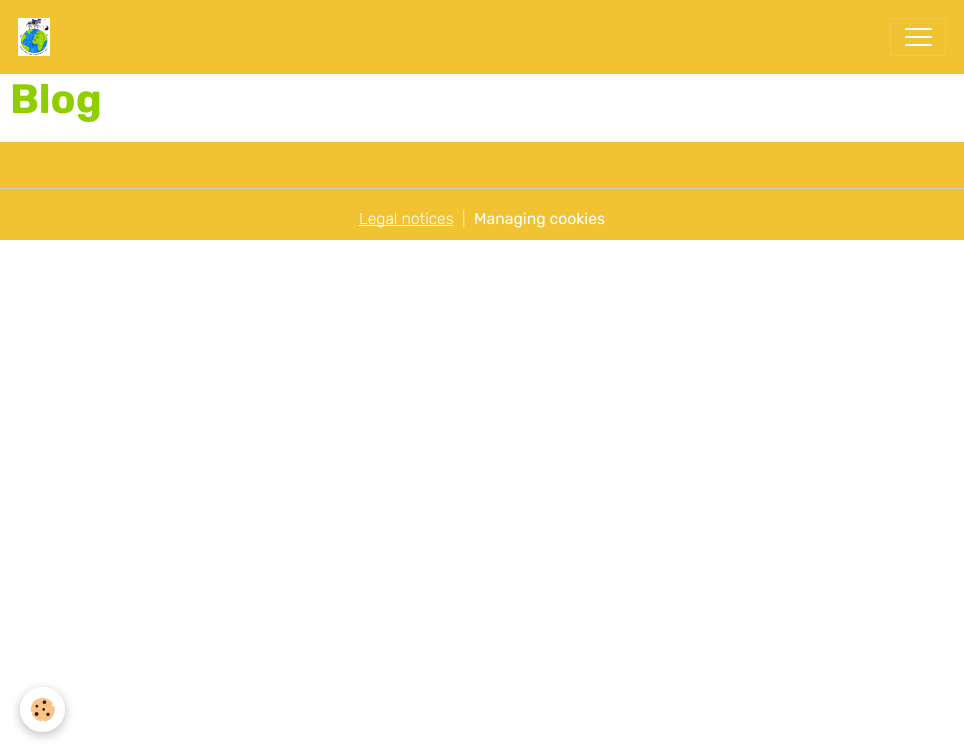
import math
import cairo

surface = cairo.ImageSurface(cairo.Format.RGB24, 964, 751)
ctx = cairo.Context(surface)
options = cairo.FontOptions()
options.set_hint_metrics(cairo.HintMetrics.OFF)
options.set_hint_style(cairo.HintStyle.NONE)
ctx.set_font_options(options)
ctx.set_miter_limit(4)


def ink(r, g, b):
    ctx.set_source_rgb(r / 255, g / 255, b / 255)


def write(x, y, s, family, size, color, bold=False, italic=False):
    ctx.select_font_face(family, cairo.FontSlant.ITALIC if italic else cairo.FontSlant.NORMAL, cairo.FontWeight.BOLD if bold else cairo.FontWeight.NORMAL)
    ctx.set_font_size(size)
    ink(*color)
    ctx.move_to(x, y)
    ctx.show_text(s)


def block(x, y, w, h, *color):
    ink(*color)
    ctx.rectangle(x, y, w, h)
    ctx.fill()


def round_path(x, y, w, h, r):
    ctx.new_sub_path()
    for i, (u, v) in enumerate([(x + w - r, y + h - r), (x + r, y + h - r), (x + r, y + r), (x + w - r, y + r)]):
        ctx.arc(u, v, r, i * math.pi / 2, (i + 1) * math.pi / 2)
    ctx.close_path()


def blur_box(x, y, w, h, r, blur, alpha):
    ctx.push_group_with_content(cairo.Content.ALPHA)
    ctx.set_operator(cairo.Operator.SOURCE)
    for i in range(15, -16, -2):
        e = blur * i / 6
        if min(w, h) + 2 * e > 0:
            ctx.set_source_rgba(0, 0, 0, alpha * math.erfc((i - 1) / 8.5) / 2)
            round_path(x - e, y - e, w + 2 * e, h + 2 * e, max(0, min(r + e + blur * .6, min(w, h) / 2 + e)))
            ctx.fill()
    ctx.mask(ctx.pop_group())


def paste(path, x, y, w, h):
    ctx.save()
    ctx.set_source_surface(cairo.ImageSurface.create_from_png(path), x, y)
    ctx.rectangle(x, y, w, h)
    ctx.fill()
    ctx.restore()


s1 = dict(family="Rubik", size=41, color=(143, 206, 0), bold=True)
s2 = dict(family="Rubik Light", size=15.75, color=(255, 255, 255))
s3 = dict(family="Rubik Light", size=15.75, color=(252, 243, 214))
s4 = dict(family="Rubik", size=15.75, color=(255, 255, 255))

ink(255, 255, 255)
ctx.paint()
block(0, 0, 964, 74, 241, 194, 50)
paste("pic1.png", 18, 18, 32, 38)
ctx.rectangle(890.5, 18.5, 55, 37)
ink(242, 200, 71)
ctx.set_line_width(1)
ctx.stroke()
ink(255, 255, 255)
round_path(905, 28, 27, 2, 1)
ctx.fill()
round_path(905, 36, 27, 2, 1)
ctx.fill()
round_path(905, 44, 27, 2, 1)
ctx.fill()
write(10, 113, "Blog", **s1)
block(0, 142, 964, 98, 241, 194, 50)
block(0, 188, 964, 1, 204, 204, 204)
block(359, 225, 94, 1, 255, 255, 255)
write(359, 224, "Legal notices", **s2)
write(462, 224, "|", **s3)
write(474, 224, "Managing cookies", **s4)
ink(0, 0, 0)
blur_box(20, 690, 45, 45, 22.5, 5, 0.24)
ink(255, 255, 255)
ctx.arc(42.5, 709.5, 22.5, 0, 2 * math.pi)
ctx.fill()
paste("pic2.png", 30, 697, 25, 25)
surface.write_to_png("screenshot.png")
